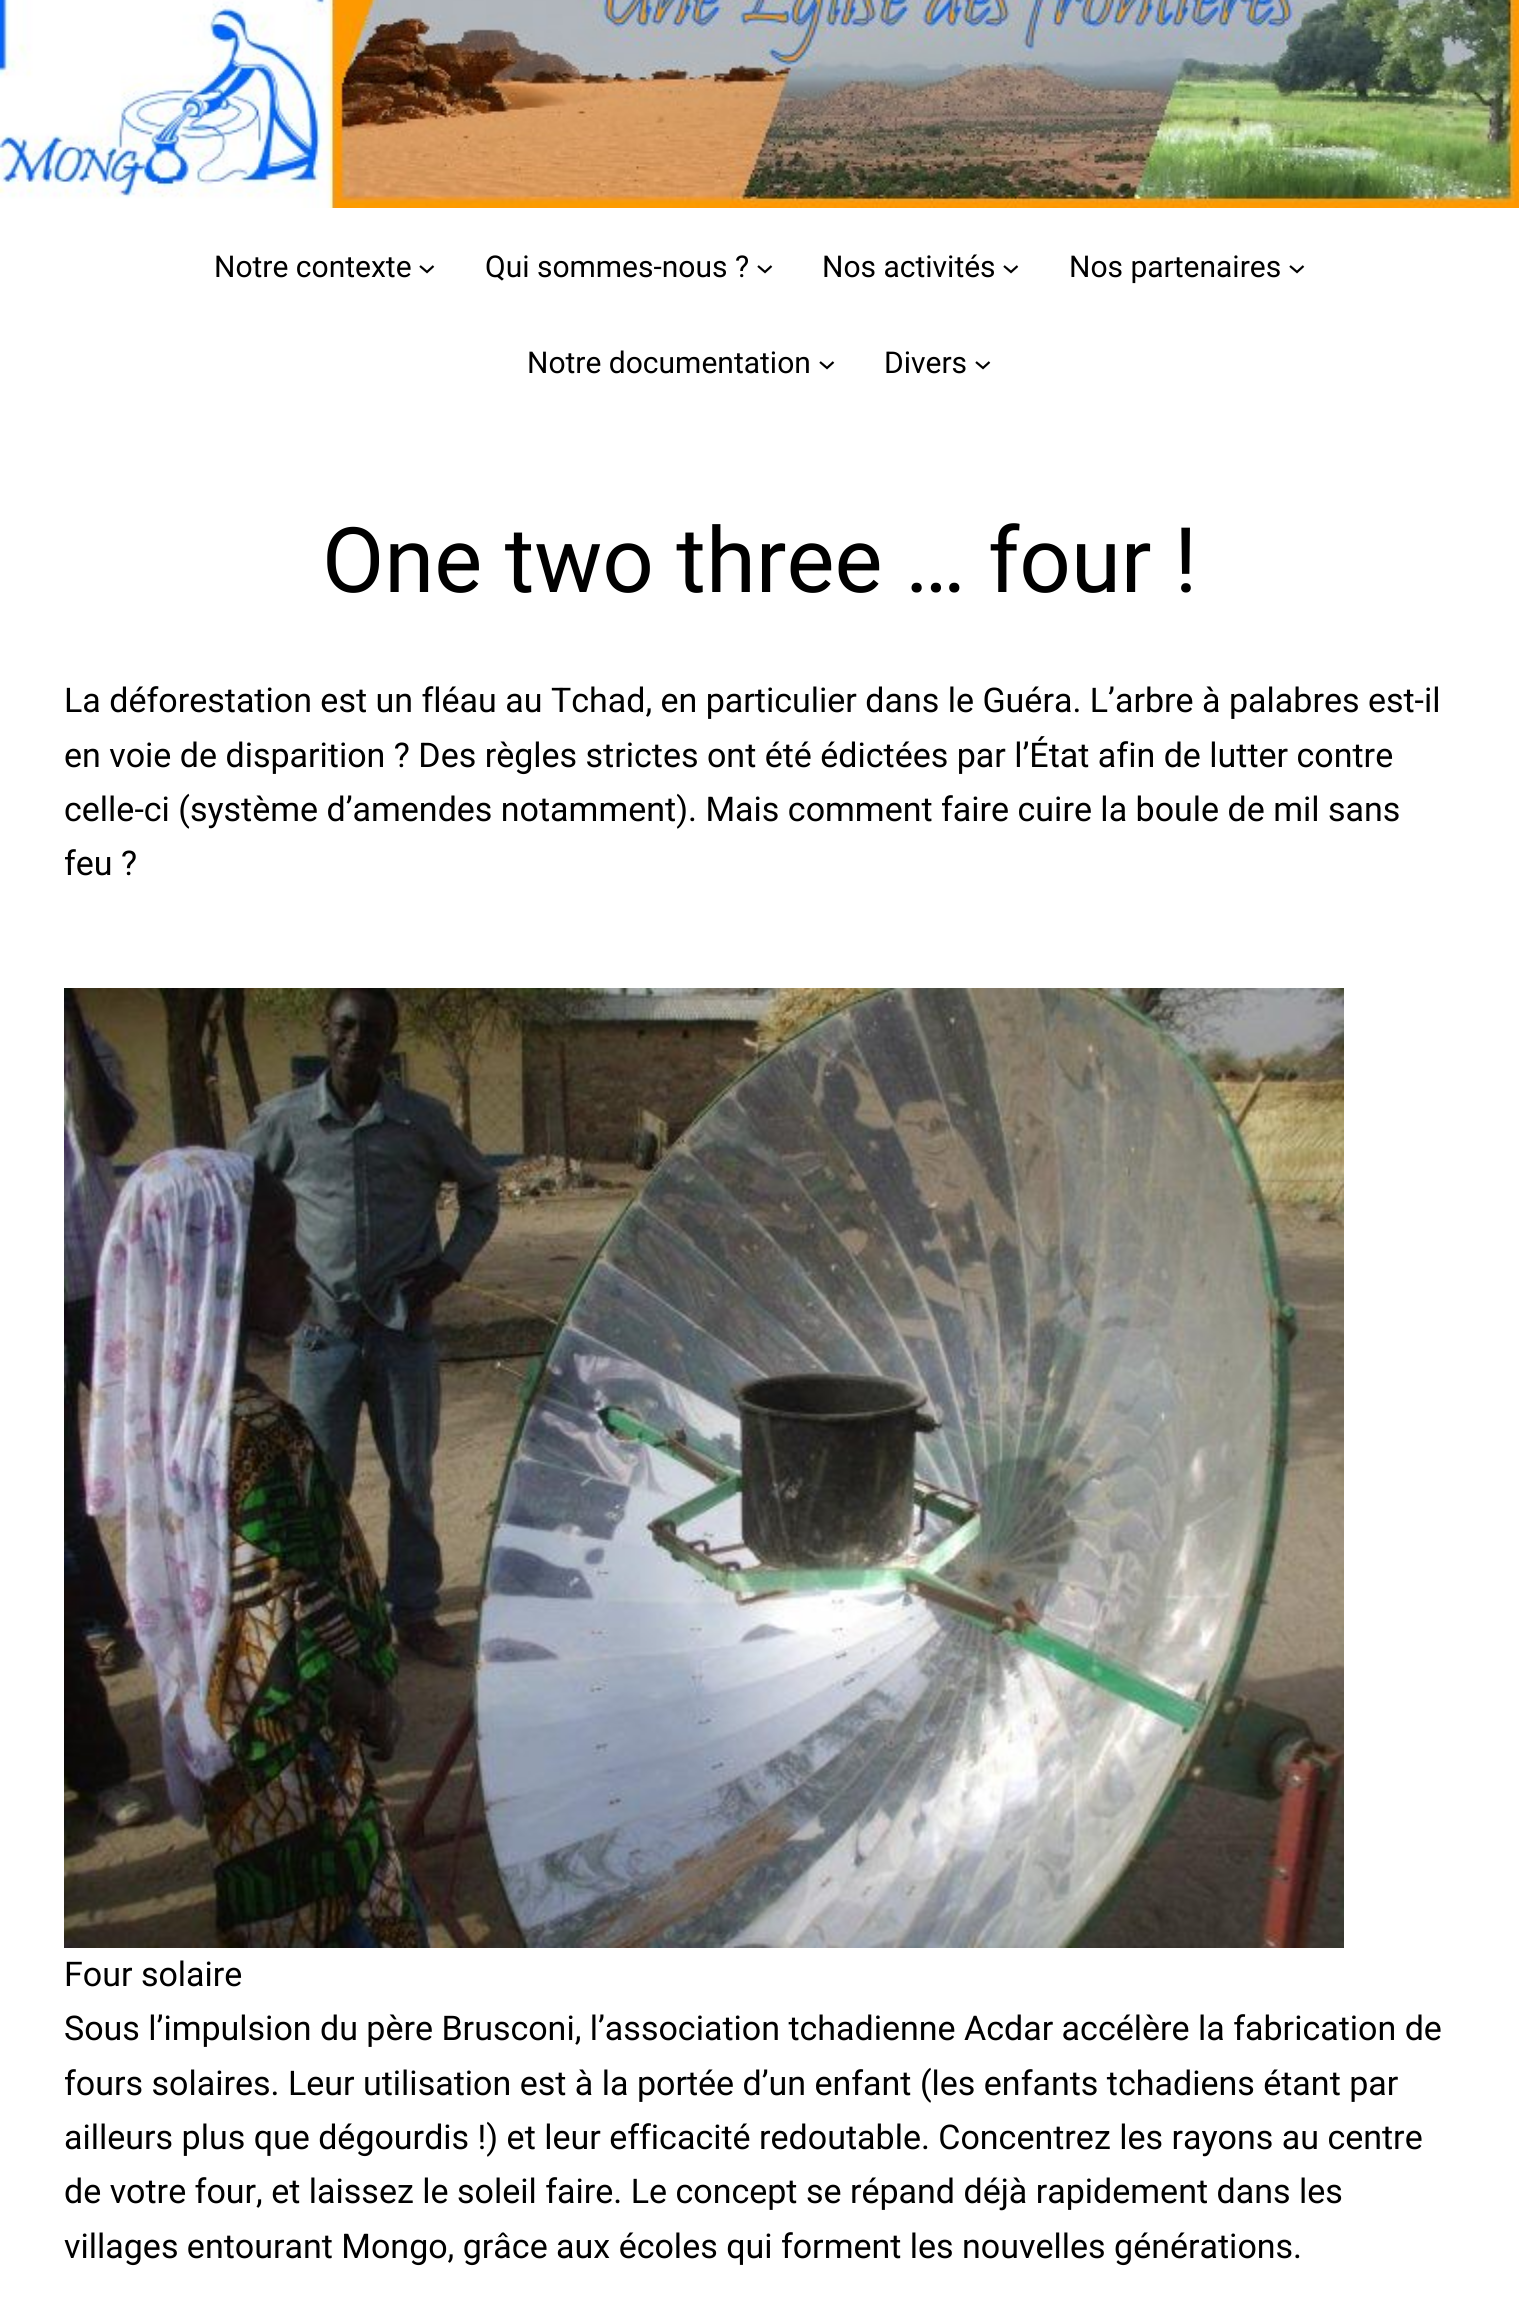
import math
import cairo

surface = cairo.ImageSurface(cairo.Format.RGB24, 1519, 2309)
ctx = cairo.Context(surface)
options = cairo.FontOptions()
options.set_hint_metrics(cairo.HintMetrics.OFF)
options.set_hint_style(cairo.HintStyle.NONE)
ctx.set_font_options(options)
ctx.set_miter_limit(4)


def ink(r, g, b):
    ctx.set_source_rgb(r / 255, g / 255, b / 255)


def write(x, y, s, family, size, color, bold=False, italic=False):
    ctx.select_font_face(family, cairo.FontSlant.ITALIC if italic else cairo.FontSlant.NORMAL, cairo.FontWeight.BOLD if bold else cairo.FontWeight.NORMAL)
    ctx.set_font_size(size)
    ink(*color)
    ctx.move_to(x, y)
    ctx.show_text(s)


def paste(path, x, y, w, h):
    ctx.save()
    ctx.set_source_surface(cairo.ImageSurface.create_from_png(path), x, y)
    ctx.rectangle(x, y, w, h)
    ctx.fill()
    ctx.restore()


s1 = dict(family="Roboto", size=30, color=(0, 0, 0))
s2 = dict(family="Roboto", size=90.5, color=(0, 0, 0))
s3 = dict(family="Roboto", size=34, color=(0, 0, 0))

ink(255, 255, 255)
ctx.paint()
paste("pic1.png", 0, 0, 1519, 208)
write(214, 277, "Notre contexte", **s1)
ctx.new_path()
ctx.move_to(420, 266)
ctx.line_to(427, 272)
ctx.line_to(433.5, 266)
ctx.set_line_width(2.2)
ctx.stroke()
write(485, 277, "Qui sommes-nous ?", **s1)
ctx.new_path()
ctx.move_to(758, 266)
ctx.line_to(765, 272)
ctx.line_to(771.5, 266)
ctx.stroke()
write(822, 277, "Nos activités", **s1)
ctx.new_path()
ctx.move_to(1004, 266)
ctx.line_to(1011, 272)
ctx.line_to(1017.5, 266)
ctx.stroke()
write(1069, 277, "Nos partenaires", **s1)
ctx.new_path()
ctx.move_to(1290, 266)
ctx.line_to(1297, 272)
ctx.line_to(1303.5, 266)
ctx.stroke()
write(527, 373, "Notre documentation", **s1)
ctx.new_path()
ctx.move_to(820, 362)
ctx.line_to(827, 368)
ctx.line_to(833.5, 362)
ctx.stroke()
write(884, 373, "Divers", **s1)
ctx.new_path()
ctx.move_to(976, 362)
ctx.line_to(983, 368)
ctx.line_to(989.5, 362)
ctx.stroke()
write(322, 592, "One two three … four !", **s2)
write(64, 712, "La déforestation est un fléau au Tchad, en particulier dans le Guéra. L’arbre à palabres est-il", **s3)
write(64, 767, "en voie de disparition ? Des règles strictes ont été édictées par l’État afin de lutter contre", **s3)
write(64, 821, "celle-ci (système d’amendes notamment). Mais comment faire cuire la boule de mil sans", **s3)
write(64, 875, "feu ?", **s3)
paste("pic2.png", 64, 988, 1280, 960)
write(64, 1986, "Four solaire", **s3)
write(64, 2040, "Sous l’impulsion du père Brusconi, l’association tchadienne Acdar accélère la fabrication de", **s3)
write(64, 2095, "fours solaires. Leur utilisation est à la portée d’un enfant (les enfants tchadiens étant par", **s3)
write(64, 2149, "ailleurs plus que dégourdis !) et leur efficacité redoutable. Concentrez les rayons au centre", **s3)
write(64, 2203, "de votre four, et laissez le soleil faire. Le concept se répand déjà rapidement dans les", **s3)
write(64, 2258, "villages entourant Mongo, grâce aux écoles qui forment les nouvelles générations.", **s3)
surface.write_to_png("screenshot.png")
